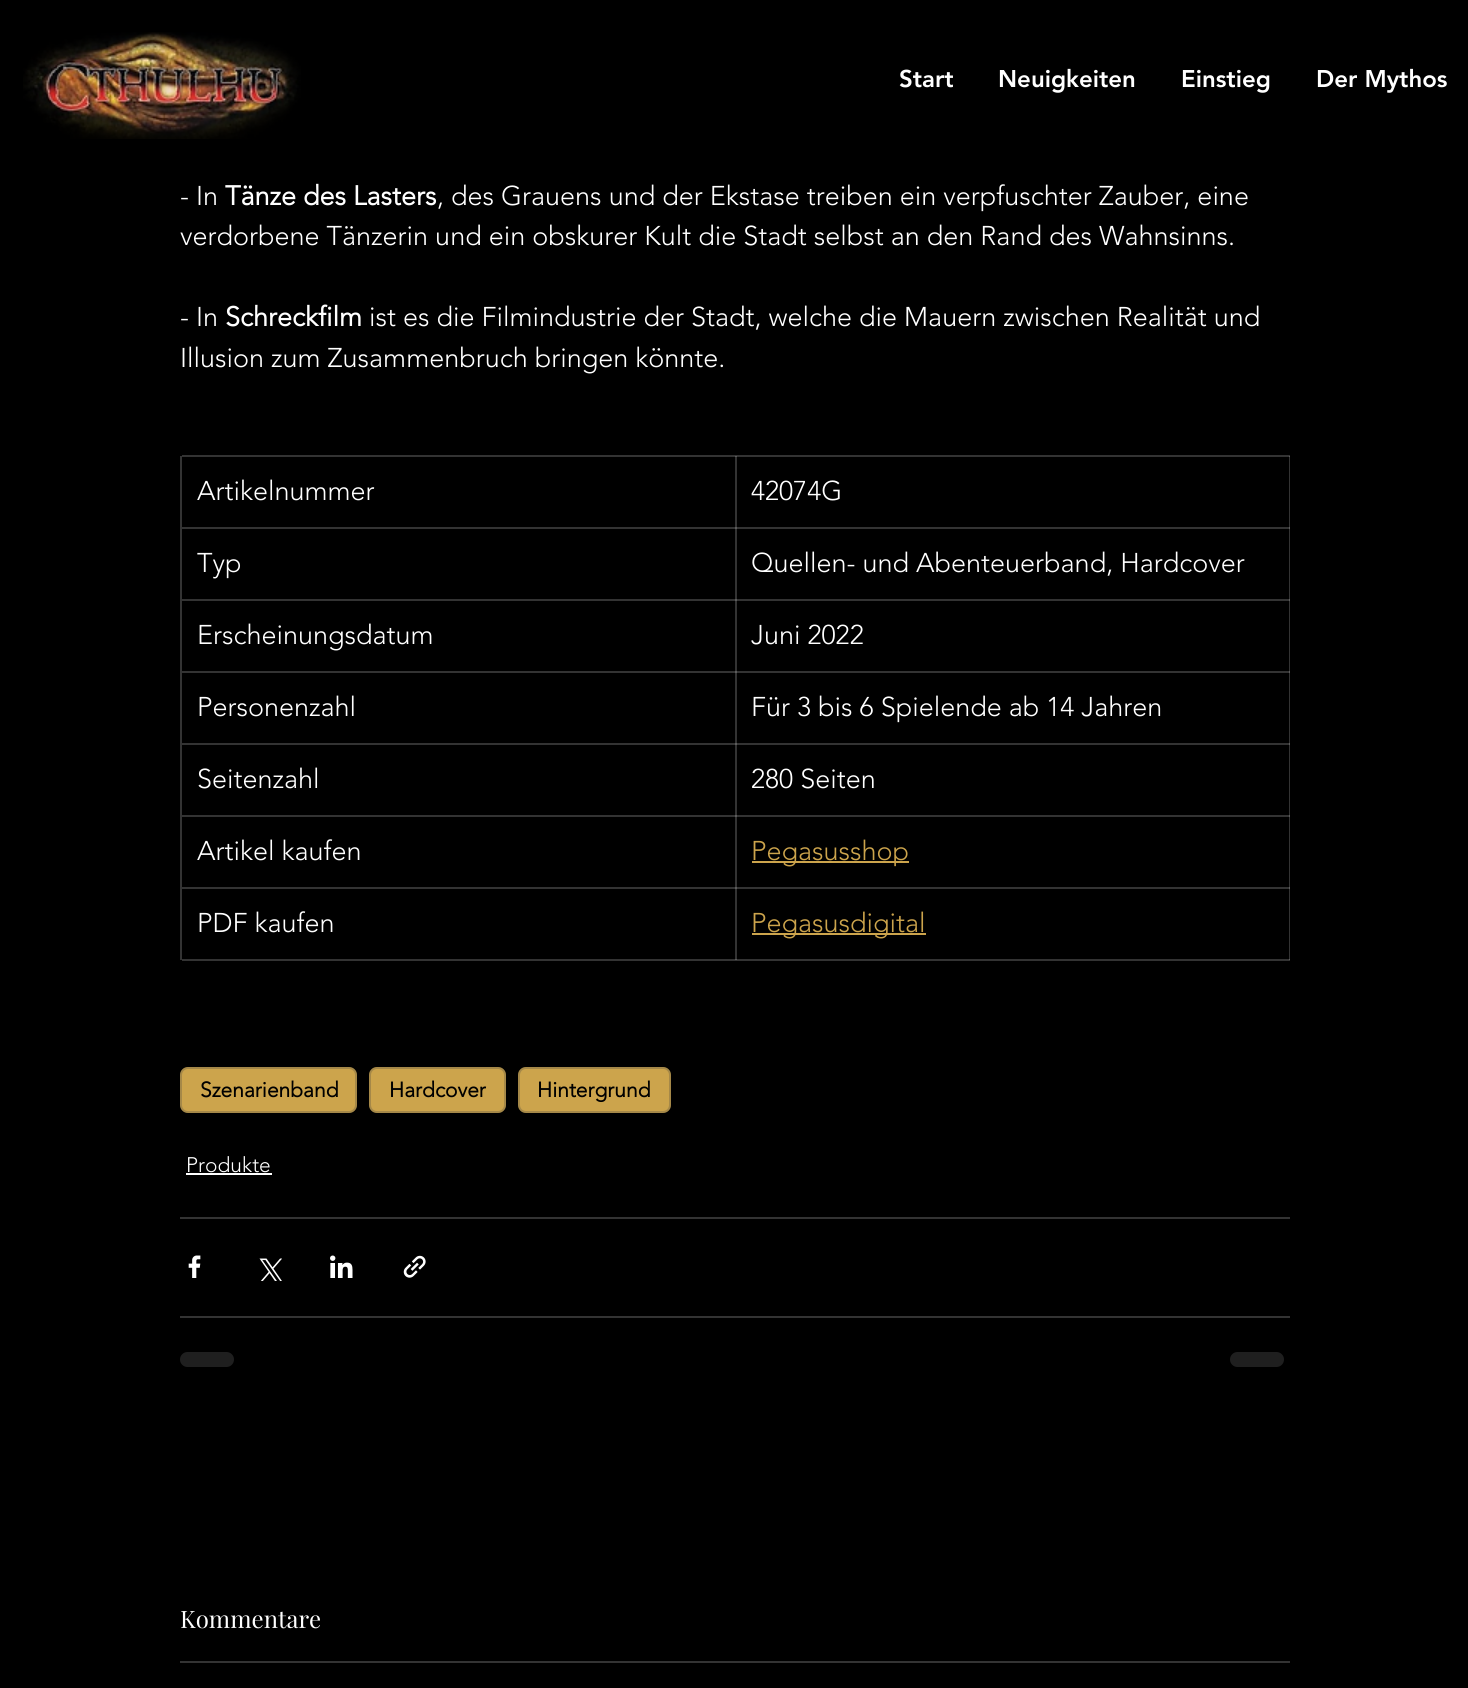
import math
import cairo

surface = cairo.ImageSurface(cairo.Format.RGB24, 1468, 1688)
ctx = cairo.Context(surface)
options = cairo.FontOptions()
options.set_hint_metrics(cairo.HintMetrics.OFF)
options.set_hint_style(cairo.HintStyle.NONE)
ctx.set_font_options(options)
ctx.set_miter_limit(4)


def ink(r, g, b):
    ctx.set_source_rgb(r / 255, g / 255, b / 255)


def write(x, y, s, family, size, color, bold=False, italic=False):
    ctx.select_font_face(family, cairo.FontSlant.ITALIC if italic else cairo.FontSlant.NORMAL, cairo.FontWeight.BOLD if bold else cairo.FontWeight.NORMAL)
    ctx.set_font_size(size)
    ink(*color)
    ctx.move_to(x, y)
    ctx.show_text(s)


def block(x, y, w, h, *color):
    ink(*color)
    ctx.rectangle(x, y, w, h)
    ctx.fill()


def round_path(x, y, w, h, r):
    ctx.new_sub_path()
    for i, (u, v) in enumerate([(x + w - r, y + h - r), (x + r, y + h - r), (x + r, y + r), (x + w - r, y + r)]):
        ctx.arc(u, v, r, i * math.pi / 2, (i + 1) * math.pi / 2)
    ctx.close_path()


def paste(path, x, y, w, h):
    ctx.save()
    ctx.set_source_surface(cairo.ImageSurface.create_from_png(path), x, y)
    ctx.rectangle(x, y, w, h)
    ctx.fill()
    ctx.restore()


s1 = dict(family="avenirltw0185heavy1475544 Black", size=24, color=(255, 255, 255))
s2 = dict(family="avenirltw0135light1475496 Light", size=27, color=(255, 255, 255))
s3 = dict(family="avenirltw0135light1475496", size=27, color=(255, 255, 255), bold=True)
s4 = dict(family="avenirltw0135light1475496 Light", size=27, color=(204, 164, 76))
s5 = dict(family="avenirltw0135light1475496", size=21, color=(0, 0, 0), bold=True)
s6 = dict(family="avenirltw0135light1475496 Light", size=21, color=(255, 255, 255))
s7 = dict(family="Playfair Display", size=24, color=(255, 255, 255))

ink(0, 0, 0)
ctx.paint()
paste("pic1.png", 23, 32, 278, 107)
write(899, 87, "Start", **s1)
write(998, 87, "Neuigkeiten", **s1)
write(1181, 87, "Einstieg", **s1)
write(1316, 87, "Der Mythos", **s1)
write(180, 205, "- In", **s2)
write(225, 205, "Tänze des Lasters", **s3)
write(437, 205, ", des Grauens und der Ekstase treiben ein verpfuschter Zauber, eine", **s2)
write(180, 245, "verdorbene Tänzerin und ein obskurer Kult die Stadt selbst an den Rand des Wahnsinns.", **s2)
write(180, 326, "- In", **s2)
write(225, 326, "Schreckfilm", **s3)
write(369, 326, "ist es die Filmindustrie der Stadt, welche die Mauern zwischen Realität und", **s2)
write(180, 367, "Illusion zum Zusammenbruch bringen könnte.", **s2)
block(180, 456, 2, 504, 51, 51, 51)
block(735, 888, 2, 72, 51, 51, 51)
block(1289, 888, 1, 72, 51, 51, 51)
block(182, 887, 1108, 2, 51, 51, 51)
block(735, 816, 2, 72, 51, 51, 51)
block(1289, 816, 1, 72, 51, 51, 51)
block(182, 815, 1108, 2, 51, 51, 51)
block(735, 744, 2, 72, 51, 51, 51)
block(1289, 744, 1, 72, 51, 51, 51)
block(182, 743, 1108, 2, 51, 51, 51)
block(735, 672, 2, 72, 51, 51, 51)
block(1289, 672, 1, 72, 51, 51, 51)
block(182, 671, 1108, 2, 51, 51, 51)
block(735, 600, 2, 72, 51, 51, 51)
block(1289, 600, 1, 72, 51, 51, 51)
block(182, 599, 1108, 2, 51, 51, 51)
block(735, 528, 2, 72, 51, 51, 51)
block(1289, 528, 1, 72, 51, 51, 51)
block(182, 527, 1108, 2, 51, 51, 51)
block(735, 456, 2, 72, 51, 51, 51)
block(1289, 456, 1, 72, 51, 51, 51)
block(182, 455, 1108, 2, 51, 51, 51)
block(735, 456, 2, 1, 92, 92, 92)
write(197, 500, "Artikelnummer", **s2)
block(1289, 456, 1, 1, 92, 92, 92)
write(751, 500, "42074G", **s2)
write(197, 572, "Typ", **s2)
write(751, 572, "Quellen- und Abenteuerband, Hardcover", **s2)
write(197, 644, "Erscheinungsdatum", **s2)
write(751, 644, "Juni 2022", **s2)
write(197, 716, "Personenzahl", **s2)
write(751, 716, "Für 3 bis 6 Spielende ab 14 Jahren", **s2)
write(197, 788, "Seitenzahl", **s2)
write(751, 788, "280 Seiten", **s2)
write(197, 860, "Artikel kaufen", **s2)
block(752, 861, 157, 2, 204, 164, 76)
write(751, 860, "Pegasusshop", **s4)
write(197, 932, "PDF kaufen", **s2)
block(182, 959, 1108, 2, 51, 51, 51)
block(735, 959, 2, 1, 92, 92, 92)
block(752, 933, 174, 2, 204, 164, 76)
write(751, 932, "Pegasusdigital", **s4)
block(1289, 959, 1, 1, 92, 92, 92)
ink(204, 164, 76)
round_path(180, 1067, 177, 46, 8)
ctx.fill()
round_path(181, 1068, 175, 44, 7)
ctx.set_source_rgba(0.047, 0.114, 0.224, 0.2)
ctx.stroke()
write(200, 1097, "Szenarienband", **s5)
ink(204, 164, 76)
round_path(369, 1067, 137, 46, 8)
ctx.fill()
round_path(370, 1068, 135, 44, 7)
ctx.set_source_rgba(0.047, 0.114, 0.224, 0.2)
ctx.stroke()
write(389, 1097, "Hardcover", **s5)
ink(204, 164, 76)
round_path(518, 1067, 153, 46, 8)
ctx.fill()
round_path(519, 1068, 151, 44, 7)
ctx.set_source_rgba(0.047, 0.114, 0.224, 0.2)
ctx.stroke()
write(537, 1097, "Hintergrund", **s5)
write(186, 1172, "Produkte", **s6)
block(186, 1173, 86, 2, 255, 255, 255)
block(180, 1217, 1110, 2, 51, 51, 51)
paste("pic2.png", 188, 1255, 13, 23)
paste("pic3.png", 259, 1258, 23, 23)
paste("pic4.png", 330, 1255, 23, 23)
paste("pic5.png", 403, 1255, 23, 23)
block(180, 1316, 1110, 2, 51, 51, 51)
ink(31, 31, 31)
round_path(180, 1352, 54, 15, 7.5)
ctx.fill()
round_path(1230, 1352, 54, 15, 7.5)
ctx.fill()
write(180, 1628, "Kommentare", **s7)
block(180, 1661, 1110, 2, 51, 51, 51)
block(1289, 888, 1, 1, 92, 92, 92)
block(735, 888, 2, 1, 92, 92, 92)
block(735, 887, 2, 1, 92, 92, 92)
block(1289, 887, 1, 1, 92, 92, 92)
block(1289, 816, 1, 1, 92, 92, 92)
block(735, 816, 2, 1, 92, 92, 92)
block(735, 815, 2, 1, 92, 92, 92)
block(1289, 815, 1, 1, 92, 92, 92)
block(1289, 744, 1, 1, 92, 92, 92)
block(735, 744, 2, 1, 92, 92, 92)
block(735, 743, 2, 1, 92, 92, 92)
block(1289, 743, 1, 1, 92, 92, 92)
block(1289, 672, 1, 1, 92, 92, 92)
block(735, 672, 2, 1, 92, 92, 92)
block(735, 671, 2, 1, 92, 92, 92)
block(1289, 671, 1, 1, 92, 92, 92)
block(1289, 600, 1, 1, 92, 92, 92)
block(735, 600, 2, 1, 92, 92, 92)
block(735, 599, 2, 1, 92, 92, 92)
block(1289, 599, 1, 1, 92, 92, 92)
block(1289, 528, 1, 1, 92, 92, 92)
block(735, 528, 2, 1, 92, 92, 92)
block(735, 527, 2, 1, 92, 92, 92)
block(1289, 527, 1, 1, 92, 92, 92)
surface.write_to_png("screenshot.png")
